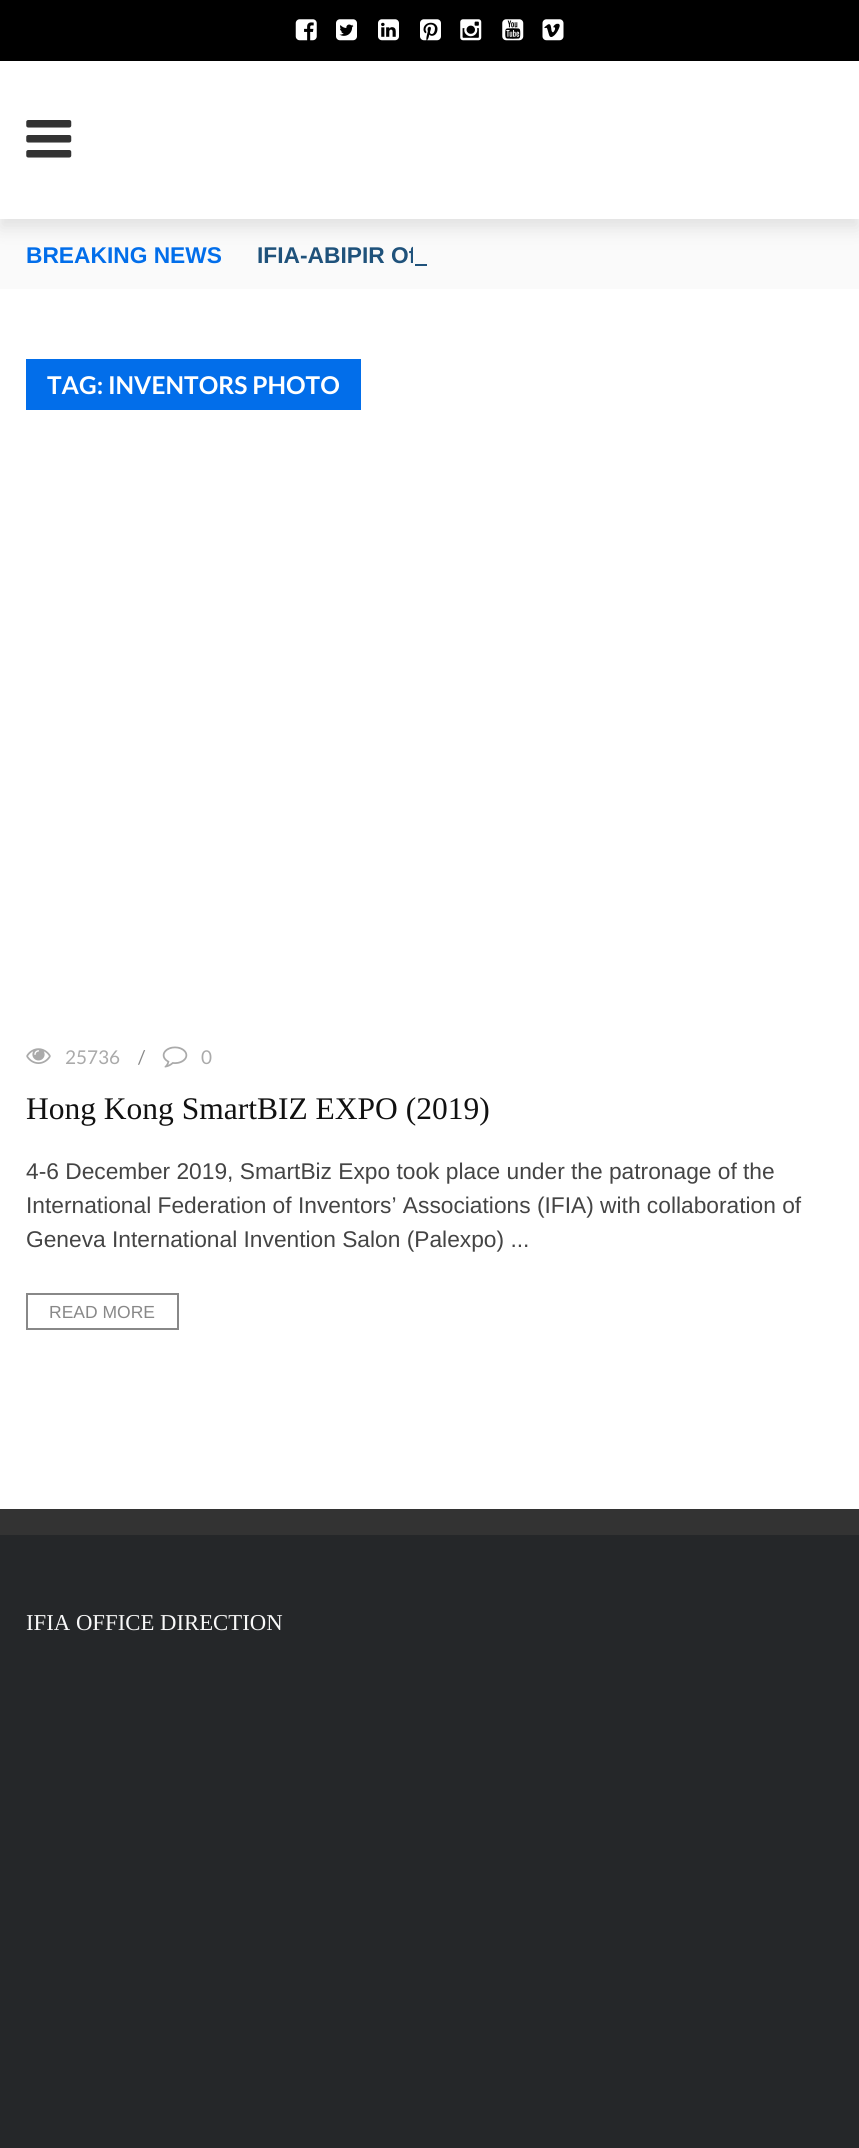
import math
import cairo

surface = cairo.ImageSurface(cairo.Format.RGB24, 859, 2148)
ctx = cairo.Context(surface)
options = cairo.FontOptions()
options.set_hint_metrics(cairo.HintMetrics.OFF)
options.set_hint_style(cairo.HintStyle.NONE)
ctx.set_font_options(options)
ctx.set_miter_limit(4)


def ink(r, g, b):
    ctx.set_source_rgb(r / 255, g / 255, b / 255)


def write(x, y, s, family, size, color, bold=False, italic=False):
    ctx.select_font_face(family, cairo.FontSlant.ITALIC if italic else cairo.FontSlant.NORMAL, cairo.FontWeight.BOLD if bold else cairo.FontWeight.NORMAL)
    ctx.set_font_size(size)
    ink(*color)
    ctx.move_to(x, y)
    ctx.show_text(s)


def block(x, y, w, h, *color):
    ink(*color)
    ctx.rectangle(x, y, w, h)
    ctx.fill()


def round_path(x, y, w, h, r):
    ctx.new_sub_path()
    for i, (u, v) in enumerate([(x + w - r, y + h - r), (x + r, y + h - r), (x + r, y + r), (x + w - r, y + r)]):
        ctx.arc(u, v, r, i * math.pi / 2, (i + 1) * math.pi / 2)
    ctx.close_path()


def blur_box(x, y, w, h, r, blur, alpha):
    ctx.push_group_with_content(cairo.Content.ALPHA)
    ctx.set_operator(cairo.Operator.SOURCE)
    for i in range(15, -16, -2):
        e = blur * i / 6
        if min(w, h) + 2 * e > 0:
            ctx.set_source_rgba(0, 0, 0, alpha * math.erfc((i - 1) / 8.5) / 2)
            round_path(x - e, y - e, w + 2 * e, h + 2 * e, max(0, min(r + e + blur * .6, min(w, h) / 2 + e)))
            ctx.fill()
    ctx.mask(ctx.pop_group())


def paste(path, x, y, w, h):
    ctx.save()
    ctx.set_source_surface(cairo.ImageSurface.create_from_png(path), x, y)
    ctx.rectangle(x, y, w, h)
    ctx.fill()
    ctx.restore()


s1 = dict(family="Liberation Sans", size=22.75, color=(31, 82, 123), bold=True)
s2 = dict(family="Liberation Sans", size=22.75, color=(2, 110, 234), bold=True)
s3 = dict(family="Lato", size=24.5, color=(255, 255, 255), bold=True)
s4 = dict(family="Lato", size=19, color=(170, 170, 170))
s5 = dict(family="Lato", size=19, color=(136, 136, 136))
s6 = dict(family="Liberation Serif", size=31.5, color=(17, 17, 17))
s7 = dict(family="Liberation Sans", size=22.75, color=(68, 68, 68))
s8 = dict(family="Liberation Sans", size=17.5, color=(136, 136, 136))
s9 = dict(family="Liberation Serif", size=22.75, color=(248, 248, 248))

ink(255, 255, 255)
ctx.paint()
block(0, 0, 859, 61, 0, 0, 0)
paste("pic1.png", 295, 19, 22, 22)
paste("pic2.png", 336, 19, 21, 22)
paste("pic3.png", 378, 19, 21, 22)
paste("pic4.png", 420, 19, 21, 22)
paste("pic5.png", 460, 19, 22, 22)
paste("pic6.png", 502, 19, 22, 22)
paste("pic7.png", 542, 19, 22, 22)
block(0, 219, 859, 70, 250, 250, 250)
write(257, 263, "IFIA-ABIPIR Of", **s1)
block(413, 246, 4, 17, 250, 250, 250)
ctx.save()
ctx.set_fill_rule(cairo.FillRule.EVEN_ODD)
ctx.new_path()
ctx.move_to(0, 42)
ctx.line_to(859, 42)
ctx.line_to(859, 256)
ctx.line_to(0, 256)
ctx.close_path()
ctx.move_to(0, 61)
ctx.line_to(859, 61)
ctx.line_to(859, 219)
ctx.line_to(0, 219)
ctx.close_path()
ctx.clip()
ink(0, 0, 0)
blur_box(0, 70, 859, 158, 0, 9, 0.1)
ctx.restore()
ctx.set_source_rgba(1, 1, 1, 0.9)
ctx.rectangle(0, 218, 859, 1)
ctx.fill()
paste("pic8.png", 26, 120, 46, 38)
write(26, 263, "BREAKING NEWS", **s2)
block(415, 264, 12, 2, 31, 82, 123)
block(26, 359, 335, 51, 2, 110, 234)
write(47, 394, "TAG: INVENTORS PHOTO", **s3)
paste("pic9.png", 26, 1048, 25, 16)
write(65, 1064, "25736", **s4)
write(138, 1064, "/", **s5)
paste("pic10.png", 162, 1046, 26, 22)
write(201, 1064, "0", **s4)
write(26, 1119, "Hong Kong SmartBIZ EXPO (2019)", **s6)
write(26, 1179, "4-6 December 2019, SmartBiz Expo took place under the patronage of the", **s7)
write(26, 1213, "International Federation of Inventors’ Associations (IFIA) with collaboration of", **s7)
write(26, 1247, "Geneva International Invention Salon (Palexpo) ...", **s7)
ctx.rectangle(27, 1294, 151, 35)
ink(136, 136, 136)
ctx.stroke()
write(49, 1318, "READ MORE", **s8)
block(0, 1535, 859, 613, 37, 39, 41)
block(0, 1509, 859, 26, 51, 51, 51)
write(26, 1630, "IFIA OFFICE DIRECTION", **s9)
surface.write_to_png("screenshot.png")
